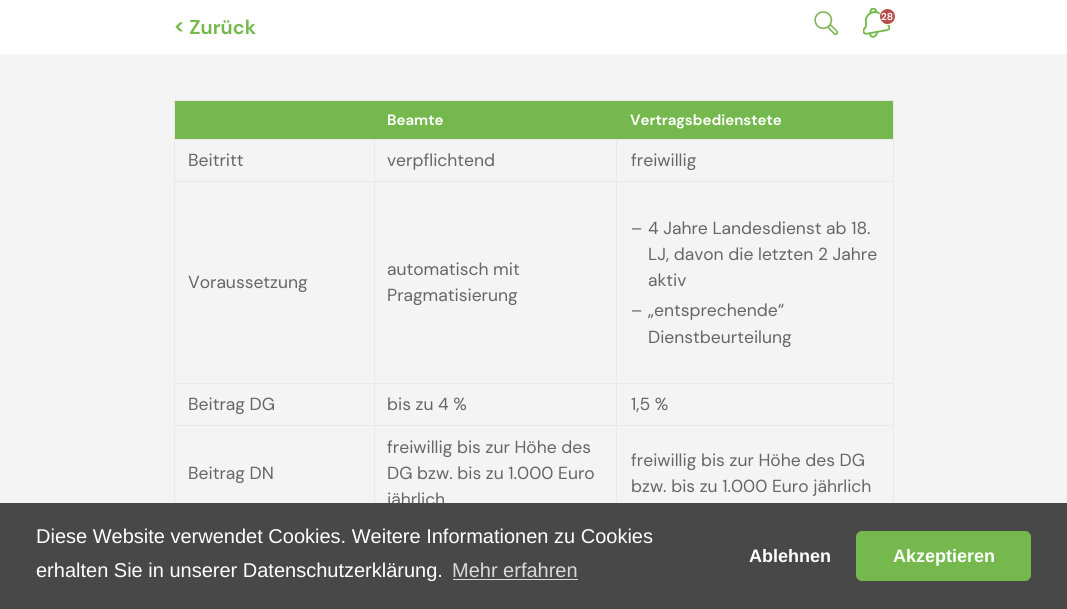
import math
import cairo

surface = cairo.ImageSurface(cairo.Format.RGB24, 1067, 609)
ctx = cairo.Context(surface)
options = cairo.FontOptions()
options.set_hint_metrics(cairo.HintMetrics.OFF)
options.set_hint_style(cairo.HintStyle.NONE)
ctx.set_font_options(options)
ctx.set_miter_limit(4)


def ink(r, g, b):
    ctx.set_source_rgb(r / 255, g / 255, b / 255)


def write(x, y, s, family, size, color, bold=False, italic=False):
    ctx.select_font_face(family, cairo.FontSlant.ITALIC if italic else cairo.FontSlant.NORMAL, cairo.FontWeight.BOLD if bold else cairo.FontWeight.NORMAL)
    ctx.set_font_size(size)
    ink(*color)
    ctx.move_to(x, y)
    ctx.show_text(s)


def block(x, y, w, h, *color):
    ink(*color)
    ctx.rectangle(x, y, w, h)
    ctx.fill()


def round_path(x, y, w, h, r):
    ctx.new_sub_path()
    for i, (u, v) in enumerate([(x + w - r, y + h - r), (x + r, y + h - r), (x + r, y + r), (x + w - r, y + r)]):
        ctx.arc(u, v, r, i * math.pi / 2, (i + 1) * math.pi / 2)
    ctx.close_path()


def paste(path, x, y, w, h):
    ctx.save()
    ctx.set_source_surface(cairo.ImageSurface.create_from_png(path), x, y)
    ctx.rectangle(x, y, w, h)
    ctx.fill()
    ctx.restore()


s1 = dict(family="DM Sans", size=10, color=(255, 255, 255), bold=True)
s2 = dict(family="DM Sans", size=20, color=(117, 185, 78), bold=True)
s3 = dict(family="DM Sans", size=15, color=(255, 255, 255), bold=True)
s4 = dict(family="DM Sans", size=17.5, color=(102, 102, 102))
s5 = dict(family="Liberation Sans", size=20, color=(255, 255, 255))
s6 = dict(family="Liberation Sans", size=20, color=(218, 218, 218))
s7 = dict(family="Liberation Sans", size=18, color=(255, 255, 255), bold=True)

ink(244, 244, 244)
ctx.paint()
block(0, 0, 1067, 54, 255, 255, 255)
paste("pic1.png", 814, 11, 25, 25)
paste("pic2.png", 863, 8, 27, 30)
ctx.arc(887.5, 16.5, 8, 0, 2 * math.pi)
ctx.set_line_width(1)
ctx.stroke()
ink(185, 78, 78)
ctx.arc(887.5, 16.5, 7.5, 0, 2 * math.pi)
ctx.fill()
write(881, 20, "28", **s1)
write(174, 34, "< Zurück", **s2)
block(174, 100, 720, 1, 233, 233, 233)
block(893, 100, 1, 403, 233, 233, 233)
block(174, 100, 1, 403, 233, 233, 233)
block(175, 101, 718, 38, 117, 185, 78)
write(387, 125, "Beamte", **s3)
write(630, 125, "Vertragsbedienstete", **s3)
block(616, 139, 278, 1, 233, 233, 233)
block(616, 181, 278, 1, 233, 233, 233)
block(616, 383, 278, 1, 233, 233, 233)
block(616, 425, 278, 1, 233, 233, 233)
block(616, 425, 1, 78, 233, 233, 233)
block(374, 425, 244, 1, 233, 233, 233)
block(616, 383, 1, 43, 233, 233, 233)
block(374, 383, 244, 1, 233, 233, 233)
block(616, 181, 1, 203, 233, 233, 233)
block(374, 181, 244, 1, 233, 233, 233)
block(616, 139, 1, 44, 233, 233, 233)
block(374, 139, 244, 1, 233, 233, 233)
block(374, 425, 1, 78, 233, 233, 233)
block(174, 425, 201, 1, 233, 233, 233)
block(374, 383, 1, 43, 233, 233, 233)
block(174, 383, 201, 1, 233, 233, 233)
block(374, 181, 1, 203, 233, 233, 233)
block(174, 181, 201, 1, 233, 233, 233)
block(374, 139, 1, 44, 233, 233, 233)
block(174, 139, 201, 1, 233, 233, 233)
write(188, 166, "Beitritt", **s4)
write(387, 166, "verpflichtend", **s4)
write(631, 166, "freiwillig", **s4)
write(188, 288, "Voraussetzung", **s4)
write(387, 275, "automatisch mit", **s4)
write(387, 301, "Pragmatisierung", **s4)
write(631, 234, "–", **s4)
write(648, 234, "4 Jahre Landesdienst ab 18.", **s4)
write(648, 260, "LJ, davon die letzten 2 Jahre", **s4)
write(648, 286, "aktiv", **s4)
write(631, 316, "–", **s4)
write(648, 316, "„entsprechende“", **s4)
write(648, 343, "Dienstbeurteilung", **s4)
write(188, 410, "Beitrag DG", **s4)
write(387, 410, "bis zu 4 %", **s4)
write(631, 410, "1,5 %", **s4)
write(188, 479, "Beitrag DN", **s4)
write(387, 453, "freiwillig bis zur Höhe des", **s4)
write(387, 479, "DG bzw. bis zu 1.000 Euro", **s4)
write(387, 505, "jährlich", **s4)
write(631, 466, "freiwillig bis zur Höhe des DG", **s4)
write(631, 492, "bzw. bis zu 1.000 Euro jährlich", **s4)
block(0, 503, 1067, 106, 72, 72, 72)
write(36, 543, "Diese Website verwendet Cookies. Weitere Informationen zu Cookies", **s5)
write(36, 577, "erhalten Sie in unserer Datenschutzerklärung.", **s5)
write(452, 577, "Mehr erfahren", **s6)
block(453, 579, 125, 1, 218, 218, 218)
write(749, 562, "Ablehnen", **s7)
ink(117, 185, 78)
round_path(856, 531, 175, 50, 6)
ctx.fill()
write(893, 562, "Akzeptieren", **s7)
surface.write_to_png("screenshot.png")
